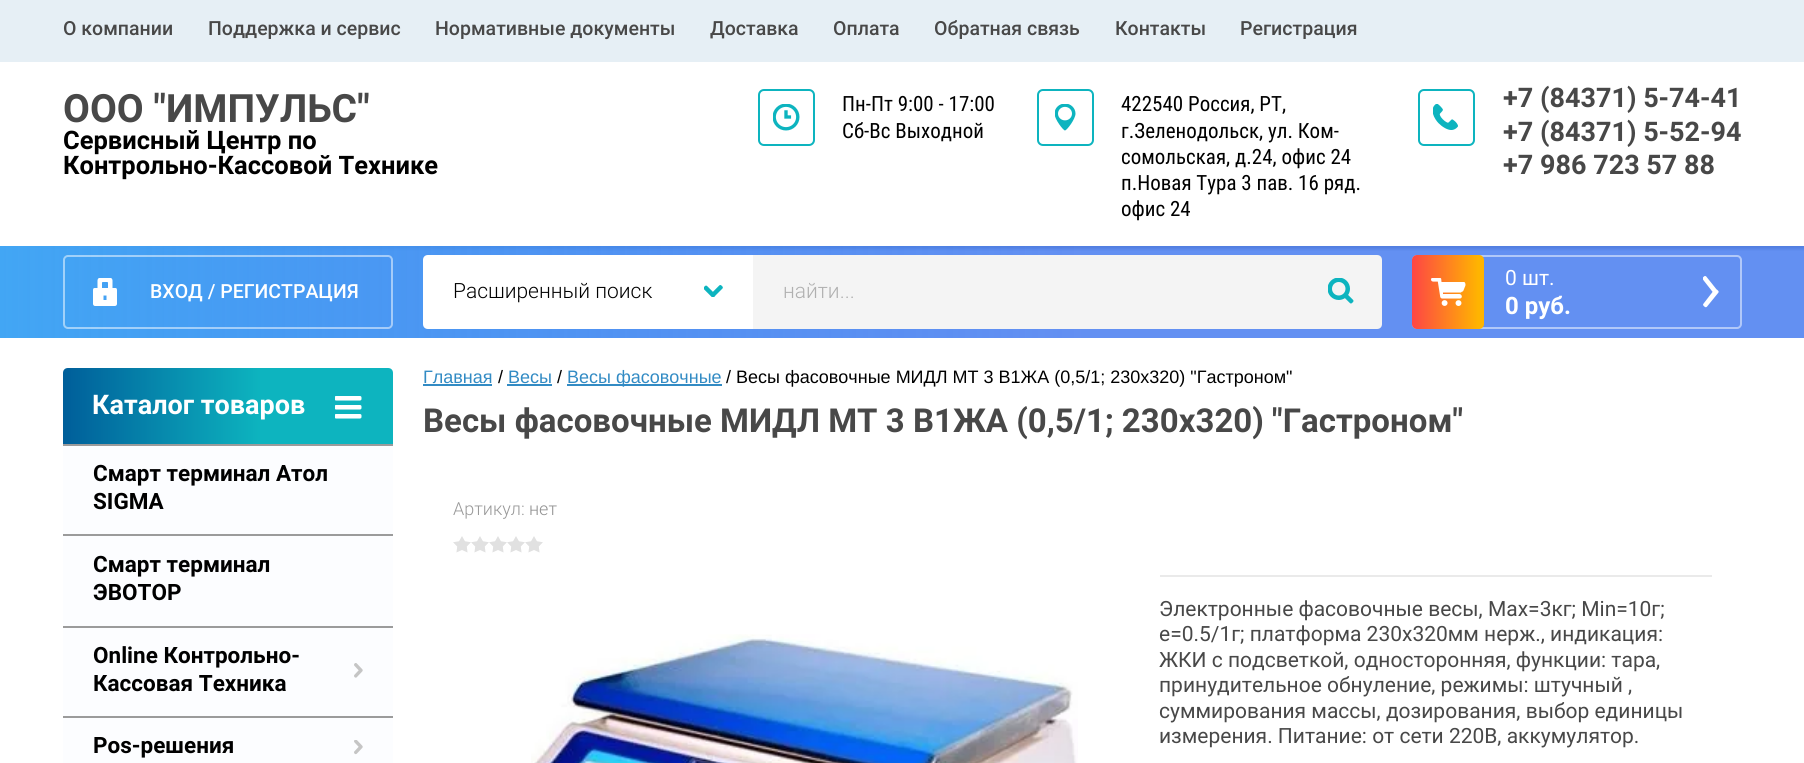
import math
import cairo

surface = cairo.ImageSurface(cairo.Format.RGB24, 1804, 763)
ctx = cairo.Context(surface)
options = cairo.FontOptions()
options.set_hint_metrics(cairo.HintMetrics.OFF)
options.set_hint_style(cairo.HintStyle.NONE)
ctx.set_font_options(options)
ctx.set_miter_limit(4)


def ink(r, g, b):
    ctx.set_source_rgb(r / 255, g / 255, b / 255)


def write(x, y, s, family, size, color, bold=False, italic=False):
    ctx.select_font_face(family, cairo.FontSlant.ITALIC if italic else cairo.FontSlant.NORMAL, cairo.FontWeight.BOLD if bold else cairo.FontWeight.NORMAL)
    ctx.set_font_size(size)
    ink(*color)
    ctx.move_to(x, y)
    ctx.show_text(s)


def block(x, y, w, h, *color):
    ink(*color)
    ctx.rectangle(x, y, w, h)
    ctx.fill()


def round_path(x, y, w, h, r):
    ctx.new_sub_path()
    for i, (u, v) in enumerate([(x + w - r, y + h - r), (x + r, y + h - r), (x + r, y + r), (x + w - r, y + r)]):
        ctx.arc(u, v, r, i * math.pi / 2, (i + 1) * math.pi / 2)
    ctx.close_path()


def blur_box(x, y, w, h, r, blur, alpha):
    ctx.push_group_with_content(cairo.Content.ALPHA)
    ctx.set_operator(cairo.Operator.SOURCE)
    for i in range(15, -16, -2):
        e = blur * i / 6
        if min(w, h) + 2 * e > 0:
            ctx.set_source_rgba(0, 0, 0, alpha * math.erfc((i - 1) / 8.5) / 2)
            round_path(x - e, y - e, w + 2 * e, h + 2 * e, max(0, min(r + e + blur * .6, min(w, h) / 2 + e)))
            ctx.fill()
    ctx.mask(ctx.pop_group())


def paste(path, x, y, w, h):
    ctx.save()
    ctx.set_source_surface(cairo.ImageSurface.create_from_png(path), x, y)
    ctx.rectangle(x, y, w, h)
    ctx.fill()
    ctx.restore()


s1 = dict(family="Roboto Medium", size=19.5, color=(72, 72, 72))
s2 = dict(family="Roboto", size=39, color=(72, 72, 72), bold=True)
s3 = dict(family="Roboto", size=25.5, color=(0, 0, 0), bold=True)
s4 = dict(family="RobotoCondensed", size=21, color=(0, 0, 0))
s5 = dict(family="Roboto", size=27, color=(72, 72, 72), bold=True)
s6 = dict(family="Roboto Medium", size=19.5, color=(255, 255, 255))
s7 = dict(family="Roboto Light", size=21, color=(0, 0, 0))
s8 = dict(family="Roboto Light", size=21, color=(176, 176, 176))
s9 = dict(family="Roboto", size=21, color=(255, 255, 255))
s10 = dict(family="Roboto", size=24, color=(255, 255, 255), bold=True)
s11 = dict(family="Roboto", size=27, color=(255, 255, 255), bold=True)
s12 = dict(family="Roboto", size=22.5, color=(0, 0, 0), bold=True)
s13 = dict(family="Liberation Sans", size=18, color=(50, 139, 196))
s14 = dict(family="Liberation Sans", size=18, color=(0, 0, 0))
s15 = dict(family="Roboto", size=33, color=(72, 72, 72), bold=True)
s16 = dict(family="Roboto Light", size=18, color=(153, 153, 153))
s17 = dict(family="Roboto Light", size=18, color=(144, 144, 144))
s18 = dict(family="Roboto", size=21, color=(72, 72, 72))

ink(255, 255, 255)
ctx.paint()
ctx.save()
ctx.rectangle(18, 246, 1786, 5)
ctx.clip()
ink(0, 0, 0)
blur_box(0, 65, 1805, 184, 0, 1.5, 0.2)
ctx.restore()
block(0, 0, 1804, 62, 230, 239, 245)
write(63, 35, "О компании", **s1)
write(208, 35, "Поддержка и сервис", **s1)
write(435, 35, "Нормативные документы", **s1)
write(710, 35, "Доставка", **s1)
write(833, 35, "Оплата", **s1)
write(934, 35, "Обратная связь", **s1)
write(1115, 35, "Контакты", **s1)
write(1240, 35, "Регистрация", **s1)
write(63, 122, "ООО \"ИМПУЛЬС\"", **s2)
write(63, 149, "Сервисный Центр по", **s3)
write(63, 174, "Контрольно-Кассовой Технике", **s3)
round_path(759, 90, 55, 55, 5)
ink(13, 180, 191)
ctx.stroke()
paste("pic1.png", 773, 104, 27, 27)
write(842, 111, "Пн-Пт 9:00 - 17:00", **s4)
write(842, 138, "Сб-Вс Выходной", **s4)
round_path(1038, 90, 55, 55, 5)
ink(13, 180, 191)
ctx.stroke()
paste("pic2.png", 1055, 104, 21, 27)
write(1121, 111, "422540 Россия, РТ,", **s4)
write(1121, 138, "г.Зеленодольск, ул. Ком-", **s4)
write(1121, 164, "сомольская, д.24, офис 24", **s4)
write(1121, 190, "п.Новая Тура 3 пав. 16 ряд.", **s4)
write(1121, 216, "офис 24", **s4)
round_path(1419, 90, 55, 55, 5)
ink(13, 180, 191)
ctx.stroke()
paste("pic3.png", 1433, 104, 25, 26)
write(1503, 107, "+7 (84371) 5-74-41", **s5)
write(1503, 141, "+7 (84371) 5-52-94", **s5)
write(1503, 174, "+7 986 723 57 88", **s5)
gradient = cairo.LinearGradient(0, 292, 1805, 292)
gradient.add_color_stop_rgba(0, 0.259, 0.651, 0.957, 1)
gradient.add_color_stop_rgba(0.6, 0.063, 0.329, 0.922, 0.65)
ctx.set_source(gradient)
ctx.rectangle(0, 246, 1804, 92)
ctx.fill()
round_path(64, 256, 328, 72, 4)
ctx.set_source_rgba(1, 1, 1, 0.5)
ctx.stroke()
paste("pic4.png", 93, 278, 24, 28)
write(150, 298, "ВХОД / РЕГИСТРАЦИЯ", **s6)
ctx.new_path()
ctx.move_to(428, 255)
ctx.line_to(753, 255)
ctx.line_to(753, 329)
ctx.line_to(428, 329)
ctx.curve_to(425, 329, 423, 327, 423, 324)
ctx.line_to(423, 260)
ctx.curve_to(423, 257, 425, 255, 428, 255)
ctx.close_path()
ctx.fill()
write(453, 298, "Расширенный поиск", **s7)
paste("pic5.png", 704, 285, 19, 12)
ink(244, 244, 244)
ctx.new_path()
ctx.move_to(753, 255)
ctx.line_to(1377, 255)
ctx.curve_to(1380, 255, 1382, 257, 1382, 260)
ctx.line_to(1382, 324)
ctx.curve_to(1382, 327, 1380, 329, 1377, 329)
ctx.line_to(753, 329)
ctx.close_path()
ctx.fill()
write(783, 298, "найти...", **s8)
paste("pic6.png", 1328, 278, 26, 26)
round_path(1413, 256, 328, 72, 4)
ink(177, 200, 249)
ctx.stroke()
gradient = cairo.LinearGradient(1412, 292, 1484, 292)
gradient.add_color_stop_rgba(0, 0.996, 0.271, 0.271, 1)
gradient.add_color_stop_rgba(0.92, 1, 0.706, 0.004, 1)
ctx.set_source(gradient)
round_path(1412, 255, 72, 74, 5)
ctx.fill()
paste("pic7.png", 1431, 278, 35, 28)
write(1505, 285, "0 шт.", **s9)
paste("pic8.png", 1703, 276, 16, 32)
write(1505, 314, "0 руб.", **s10)
ink(252, 253, 255)
round_path(63, 368, 330, 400, 5)
ctx.fill()
gradient = cairo.LinearGradient(63, 406, 393, 406)
gradient.add_color_stop_rgba(0, 0, 0.369, 0.604, 1)
gradient.add_color_stop_rgba(0.6, 0.051, 0.706, 0.749, 1)
ctx.set_source(gradient)
ctx.new_path()
ctx.move_to(68, 368)
ctx.line_to(388, 368)
ctx.curve_to(391, 368, 393, 370, 393, 373)
ctx.line_to(393, 444)
ctx.line_to(63, 444)
ctx.line_to(63, 373)
ctx.curve_to(63, 370, 65, 368, 68, 368)
ctx.close_path()
ctx.fill()
write(92, 414, "Каталог товаров", **s11)
paste("pic9.png", 335, 396, 27, 23)
block(63, 444, 330, 2, 155, 155, 155)
write(93, 481, "Смарт терминал Атол", **s12)
write(93, 509, "SIGMA", **s12)
block(63, 534, 330, 2, 155, 155, 155)
write(93, 572, "Смарт терминал", **s12)
write(93, 600, "ЭВОТОР", **s12)
block(63, 626, 330, 2, 155, 155, 155)
write(93, 663, "Online Контрольно-", **s12)
write(93, 691, "Кассовая Техника", **s12)
paste("pic10.png", 354, 663, 9, 15)
block(63, 716, 330, 2, 155, 155, 155)
write(93, 753, "Pos-решения", **s12)
paste("pic11.png", 354, 740, 9, 15)
write(423, 383, "Главная", **s13)
block(423, 384, 69, 2, 50, 139, 196)
write(498, 383, "/", **s14)
write(508, 383, "Весы", **s13)
block(507, 384, 45, 2, 50, 139, 196)
write(557, 383, "/", **s14)
block(567, 384, 155, 2, 50, 139, 196)
write(567, 383, "Весы фасовочные", **s13)
write(726, 383, "/ Весы фасовочные МИДЛ МТ 3 В1ЖА (0,5/1; 230х320) \"Гастроном\"", **s14)
write(423, 432, "Весы фасовочные МИДЛ МТ 3 В1ЖА (0,5/1; 230х320) \"Гастроном\"", **s15)
write(453, 515, "Артикул:", **s16)
write(529, 515, "нет", **s17)
paste("pic12.png", 453, 536, 90, 17)
paste("pic13.png", 531, 634, 547, 129)
block(1160, 575, 552, 2, 234, 234, 234)
write(1159, 616, "Электронные фасовочные весы, Max=3кг; Min=10г;", **s18)
write(1159, 641, "e=0.5/1г; платформа 230х320мм нерж., индикация:", **s18)
write(1159, 667, "ЖКИ с подсветкой, односторонняя, функции: тара,", **s18)
write(1159, 692, "принудительное обнуление, режимы: штучный ,", **s18)
write(1159, 718, "суммирования массы, дозирования, выбор единицы", **s18)
write(1159, 743, "измерения. Питание: от сети 220В, аккумулятор.", **s18)
surface.write_to_png("screenshot.png")
